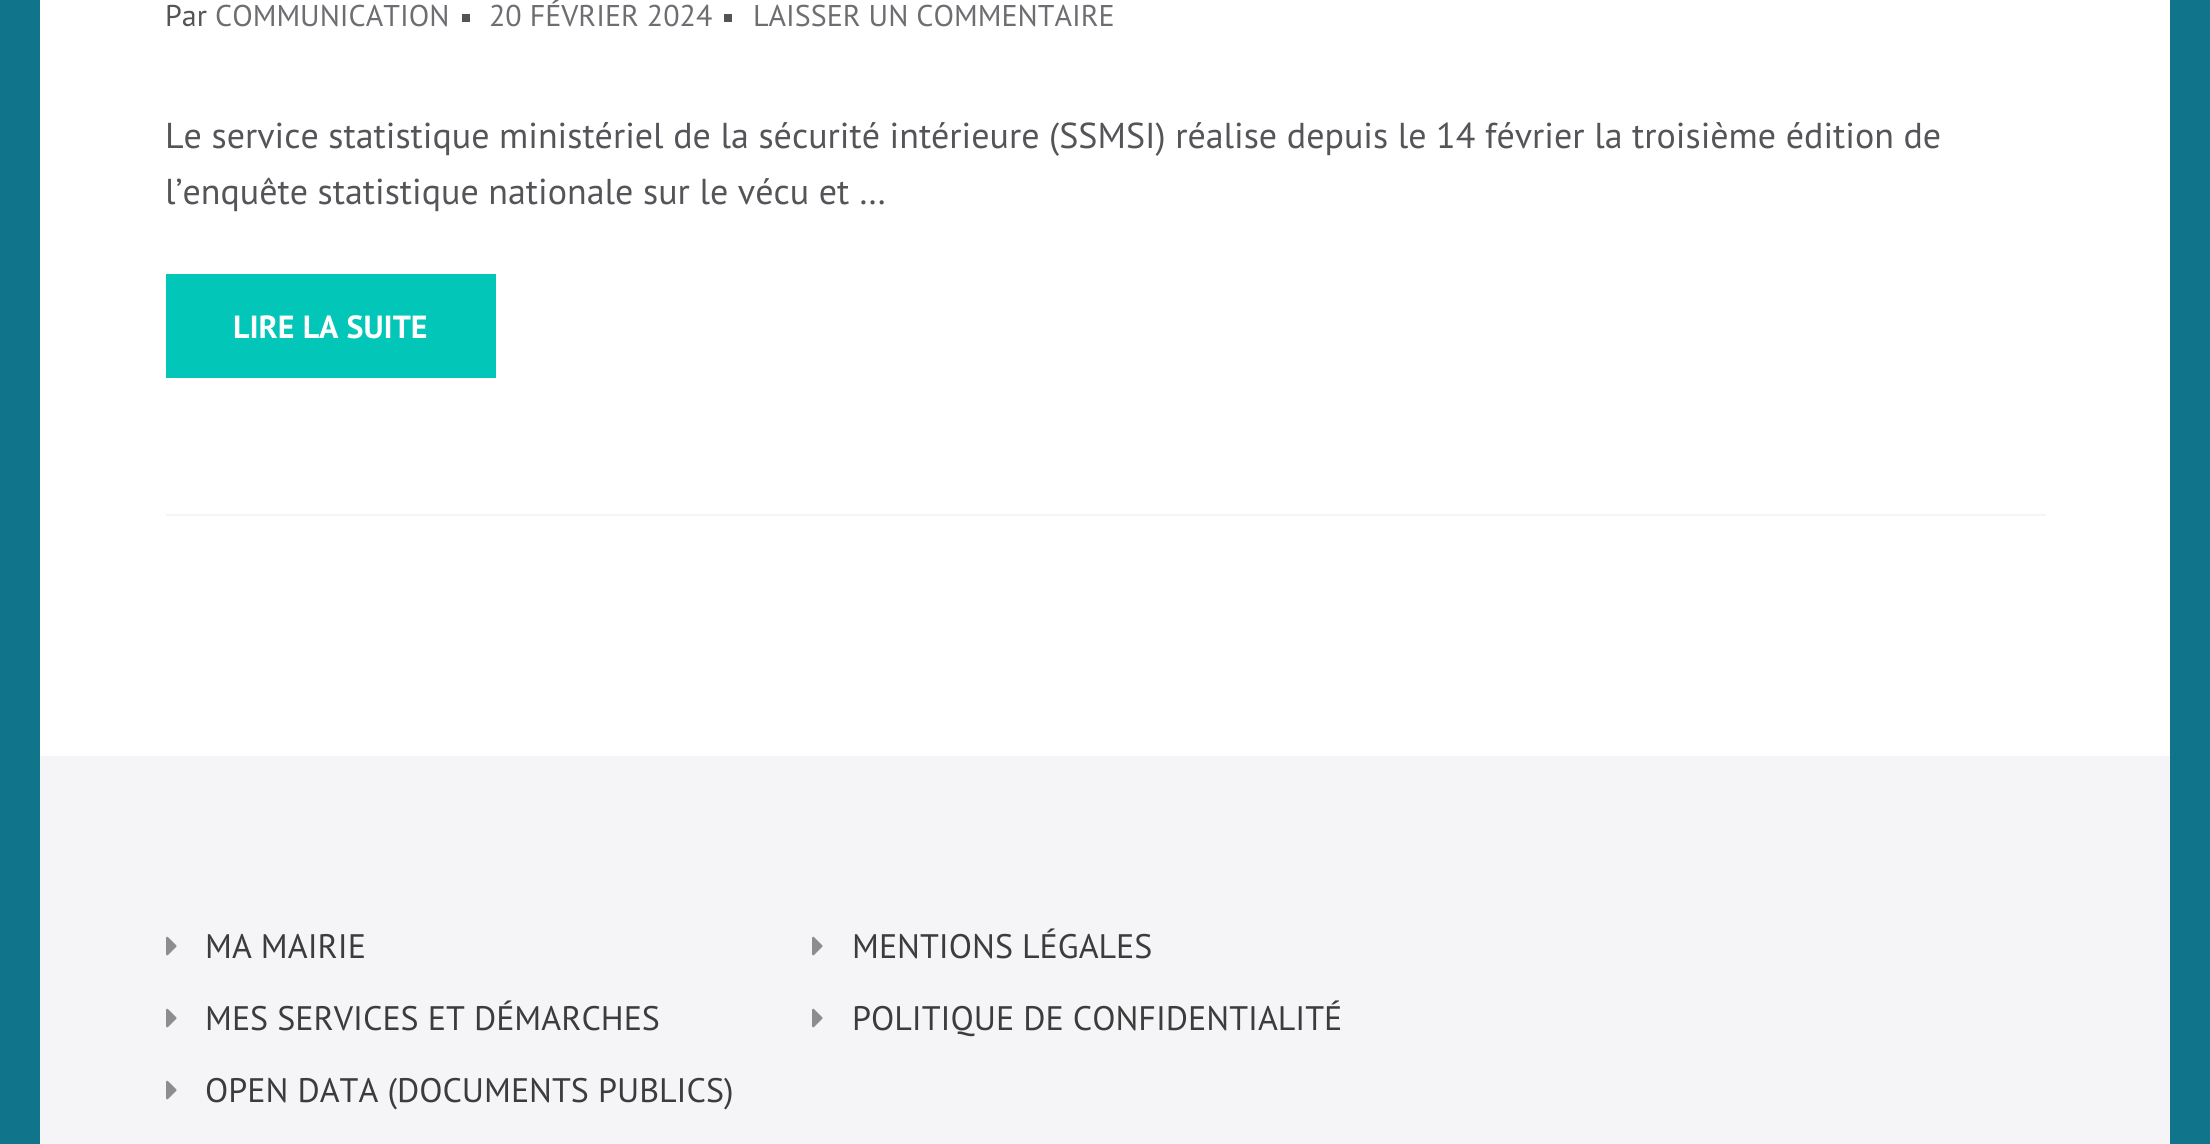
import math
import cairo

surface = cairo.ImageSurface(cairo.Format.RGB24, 2210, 1144)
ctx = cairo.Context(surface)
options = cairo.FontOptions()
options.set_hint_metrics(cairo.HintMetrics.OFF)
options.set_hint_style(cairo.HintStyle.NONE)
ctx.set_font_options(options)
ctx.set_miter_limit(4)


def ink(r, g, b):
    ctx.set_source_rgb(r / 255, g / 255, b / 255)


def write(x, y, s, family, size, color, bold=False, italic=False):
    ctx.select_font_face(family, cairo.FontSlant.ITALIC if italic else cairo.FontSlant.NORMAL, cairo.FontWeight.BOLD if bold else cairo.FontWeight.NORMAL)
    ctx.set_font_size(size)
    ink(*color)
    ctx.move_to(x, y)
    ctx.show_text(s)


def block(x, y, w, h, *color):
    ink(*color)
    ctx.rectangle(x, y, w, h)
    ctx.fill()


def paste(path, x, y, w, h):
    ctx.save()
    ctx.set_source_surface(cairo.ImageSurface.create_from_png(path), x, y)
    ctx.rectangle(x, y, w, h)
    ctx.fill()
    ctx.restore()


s1 = dict(family="PT Sans", size=30, color=(85, 84, 88))
s2 = dict(family="PT Sans", size=30, color=(110, 109, 114))
s3 = dict(family="PT Sans", size=36, color=(85, 84, 88))
s4 = dict(family="PT Sans", size=32, color=(255, 255, 255), bold=True)
s5 = dict(family="PT Sans", size=34, color=(60, 60, 60))

ink(16, 116, 139)
ctx.paint()
block(40, 0, 2130, 756, 255, 255, 255)
block(166, 514, 1880, 2, 245, 245, 246)
write(165, 26, "Par", **s1)
write(215, 26, "COMMUNICATION", **s2)
block(462, 14, 8, 8, 84, 84, 84)
write(489, 26, "20 FÉVRIER 2024", **s2)
block(724, 14, 8, 8, 84, 84, 84)
write(753, 26, "LAISSER UN COMMENTAIRE", **s2)
write(165, 148, "Le service statistique ministériel de la sécurité intérieure (SSMSI) réalise depuis le 14 février la troisième édition de", **s3)
write(165, 204, "l’enquête statistique nationale sur le vécu et …", **s3)
block(166, 274, 330, 104, 1, 198, 184)
write(233, 338, "LIRE LA SUITE", **s4)
block(40, 756, 2130, 388, 245, 245, 247)
paste("pic1.png", 166, 936, 11, 20)
write(205, 958, "MA MAIRIE", **s5)
paste("pic1.png", 166, 1008, 11, 20)
write(205, 1030, "MES SERVICES ET DÉMARCHES", **s5)
paste("pic1.png", 166, 1080, 11, 20)
write(205, 1102, "OPEN DATA (DOCUMENTS PUBLICS)", **s5)
paste("pic1.png", 812, 936, 11, 20)
write(852, 958, "MENTIONS LÉGALES", **s5)
paste("pic1.png", 812, 1008, 11, 20)
write(852, 1030, "POLITIQUE DE CONFIDENTIALITÉ", **s5)
surface.write_to_png("screenshot.png")
